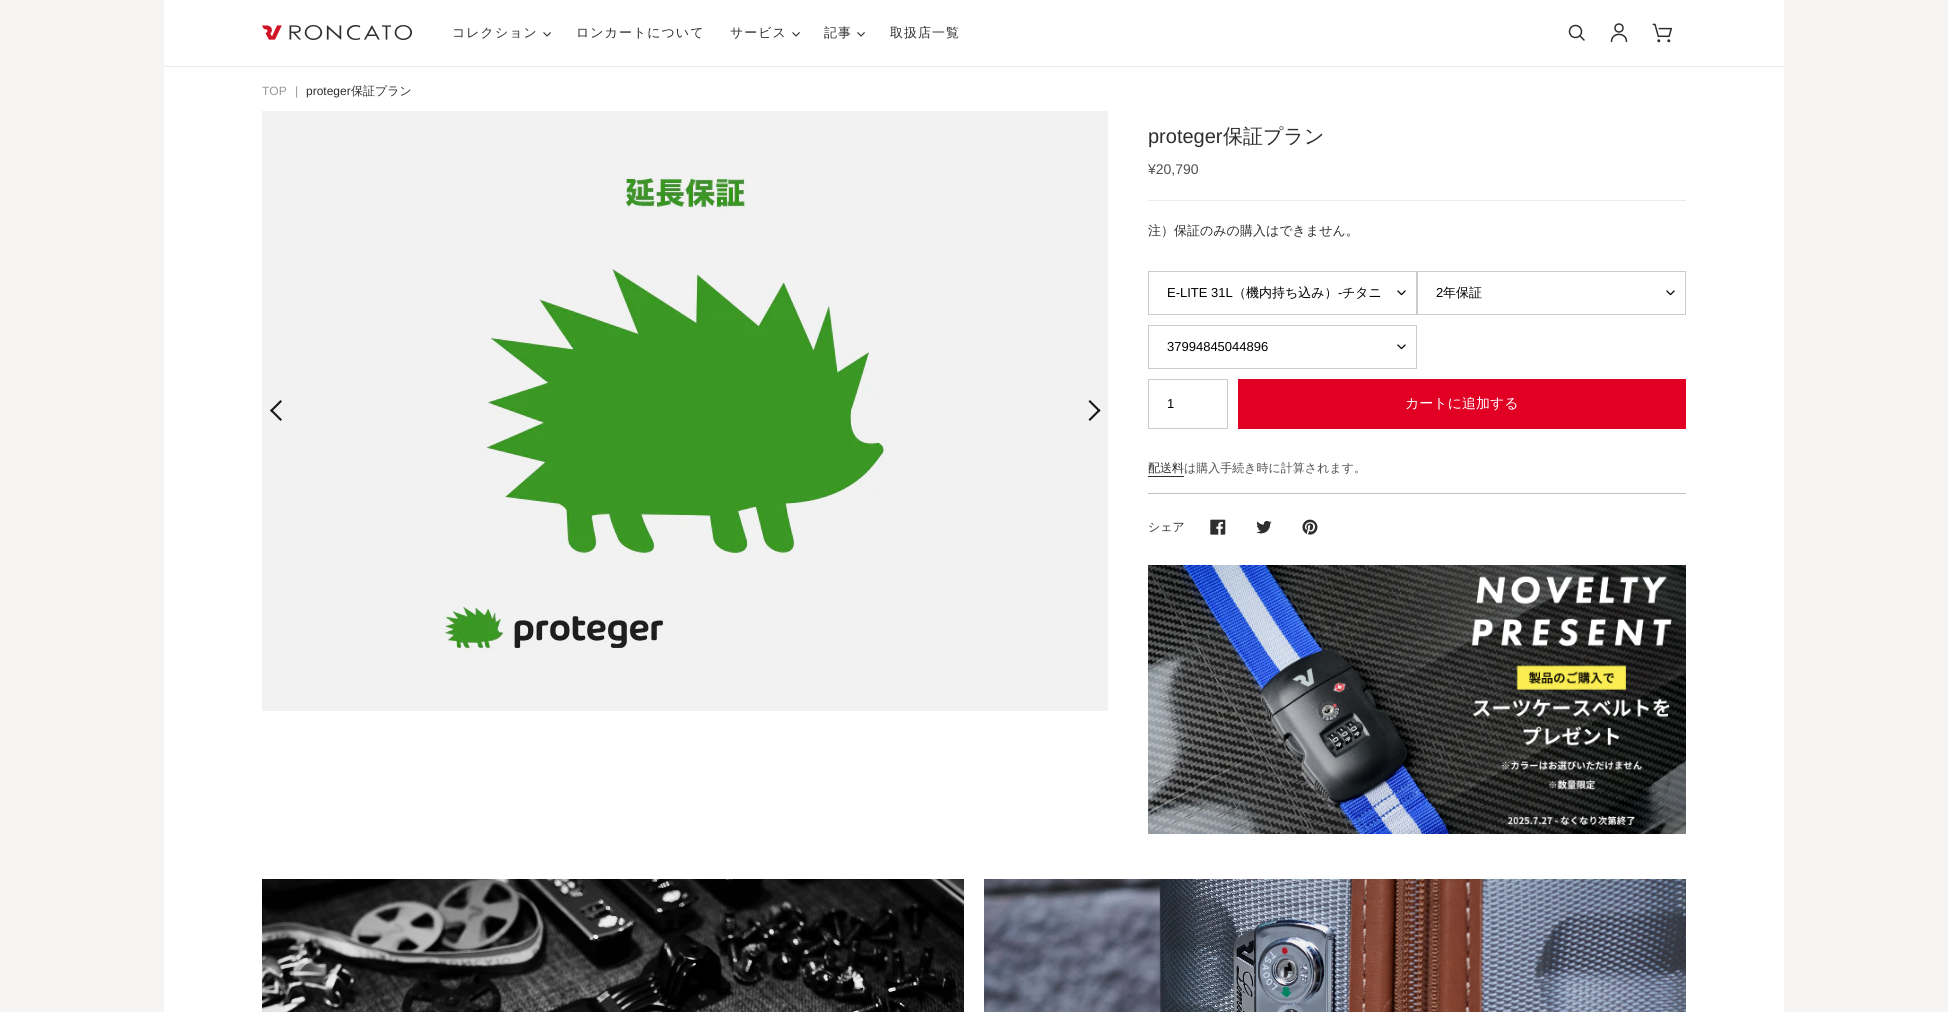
import math
import cairo

surface = cairo.ImageSurface(cairo.Format.RGB24, 1948, 1012)
ctx = cairo.Context(surface)
options = cairo.FontOptions()
options.set_hint_metrics(cairo.HintMetrics.OFF)
options.set_hint_style(cairo.HintStyle.NONE)
ctx.set_font_options(options)
ctx.set_miter_limit(4)


def ink(r, g, b):
    ctx.set_source_rgb(r / 255, g / 255, b / 255)


def write(x, y, s, family, size, color, bold=False, italic=False):
    ctx.select_font_face(family, cairo.FontSlant.ITALIC if italic else cairo.FontSlant.NORMAL, cairo.FontWeight.BOLD if bold else cairo.FontWeight.NORMAL)
    ctx.set_font_size(size)
    ink(*color)
    ctx.move_to(x, y)
    ctx.show_text(s)


def write_spaced(x, y, s, letter, word):
    ctx.move_to(x, y)
    for ch in s:
        ctx.show_text(ch)
        ctx.rel_move_to(letter + word * (ch == ' '), 0)


def block(x, y, w, h, *color):
    ink(*color)
    ctx.rectangle(x, y, w, h)
    ctx.fill()


def paste(path, x, y, w, h):
    ctx.save()
    ctx.set_source_surface(cairo.ImageSurface.create_from_png(path), x, y)
    ctx.rectangle(x, y, w, h)
    ctx.fill()
    ctx.restore()


s1 = dict(family="Liberation Sans", size=12, color=(151, 151, 151))
s2 = dict(family="Liberation Sans", size=12, color=(46, 46, 46))
s3 = dict(family="WenQuanYi Zen Hei Medium", size=12, color=(46, 46, 46))
s4 = dict(family="Liberation Sans", size=20, color=(46, 46, 46))
s5 = dict(family="WenQuanYi Zen Hei Medium", size=20, color=(46, 46, 46))
s6 = dict(family="Liberation Sans", size=14, color=(80, 80, 80))
s7 = dict(family="WenQuanYi Zen Hei Medium", size=13, color=(46, 46, 46))
s8 = dict(family="Liberation Sans", size=13, color=(0, 0, 0))
s9 = dict(family="WenQuanYi Zen Hei Medium", size=13, color=(0, 0, 0))
s10 = dict(family="WenQuanYi Zen Hei Medium", size=14, color=(255, 255, 255))
s11 = dict(family="WenQuanYi Zen Hei Medium", size=12, color=(80, 80, 80))

ink(246, 245, 243)
ctx.paint()
block(164, 0, 1620, 1012, 255, 255, 255)
block(164, 66, 1620, 1, 235, 235, 235)
paste("pic1.png", 262, 25, 150, 15)
ctx.select_font_face("WenQuanYi Zen Hei Medium")
ctx.set_font_size(13)
ink(46, 46, 46)
write_spaced(452, 37, "コレクション", 1, 0)
paste("pic2.png", 543, 32, 8, 5)
write_spaced(576, 37, "ロンカートについて", 1, 0)
write_spaced(730, 37, "サービス", 1, 0)
paste("pic2.png", 792, 32, 8, 5)
write_spaced(824, 37, "記事", 1, 0)
paste("pic2.png", 857, 32, 8, 5)
write_spaced(890, 37, "取扱店一覧", 1, 0)
ctx.new_path()
ctx.arc(1575.5, 31.5, 6, 0, 2 * math.pi)
ctx.set_line_width(1.5)
ctx.stroke()
ctx.new_path()
ctx.move_to(1580, 36)
ctx.line_to(1584, 40)
ctx.set_line_cap(cairo.LineCap.ROUND)
ctx.set_line_join(cairo.LineJoin.ROUND)
ctx.stroke()
ctx.arc(1619, 28, 4, 0, 2 * math.pi)
ctx.set_line_cap(cairo.LineCap.BUTT)
ctx.set_line_join(cairo.LineJoin.MITER)
ctx.stroke()
ctx.new_path()
ctx.move_to(1611.5, 41.5)
ctx.curve_to(1611.5, 32, 1626.5, 32, 1626.5, 41.5)
ctx.set_line_cap(cairo.LineCap.ROUND)
ctx.set_line_join(cairo.LineJoin.ROUND)
ctx.stroke()
paste("pic3.png", 1652, 23, 20, 20)
block(262, 111, 846, 600, 242, 242, 242)
write(262, 95, "TOP", **s1)
write(295, 95, "|", **s1)
write(306, 95, "proteger", **s2)
write(351, 95, "保証プラン", **s3)
ink(24, 24, 24)
ctx.new_path()
ctx.move_to(282, 419.5)
ctx.line_to(280.5, 421)
ctx.line_to(270, 410.5)
ctx.line_to(271.5, 409)
ctx.close_path()
ctx.fill()
ctx.new_path()
ctx.move_to(282, 401.5)
ctx.line_to(271.5, 412)
ctx.line_to(270, 410.5)
ctx.line_to(280.5, 400)
ctx.close_path()
ctx.fill()
paste("pic4.png", 445, 175, 442, 478)
ctx.new_path()
ctx.move_to(1088.5, 401.5)
ctx.line_to(1090, 400)
ctx.line_to(1100.5, 410.5)
ctx.line_to(1099, 412)
ctx.close_path()
ctx.fill()
ctx.new_path()
ctx.move_to(1088.5, 419.5)
ctx.line_to(1099, 409)
ctx.line_to(1100.5, 410.5)
ctx.line_to(1090, 421)
ctx.close_path()
ctx.fill()
write(1148, 143, "proteger", **s4)
write(1223, 143, "保証プラン", **s5)
write(1148, 174, "¥20,790", **s6)
block(1148, 200, 538, 1, 235, 235, 235)
write(1148, 235, "注）保証のみの購入はできません。", **s7)
paste("pic5.png", 1397, 290, 9, 6)
ctx.rectangle(1148.5, 271.5, 268, 43)
ink(204, 204, 204)
ctx.set_line_width(1)
ctx.set_line_cap(cairo.LineCap.BUTT)
ctx.set_line_join(cairo.LineJoin.MITER)
ctx.stroke()
write(1167, 297, "E-LITE 31L", **s8)
write(1233, 297, "（機内持ち込み）", **s9)
write(1338, 297, "-", **s8)
write(1342, 297, "チタニ", **s9)
paste("pic5.png", 1666, 290, 9, 6)
ctx.rectangle(1417.5, 271.5, 268, 43)
ink(204, 204, 204)
ctx.stroke()
write(1436, 297, "2", **s8)
write(1443, 297, "年保証", **s9)
paste("pic5.png", 1397, 344, 9, 6)
ctx.rectangle(1148.5, 325.5, 268, 43)
ink(204, 204, 204)
ctx.stroke()
write(1167, 351, "37994845044896", **s8)
ctx.rectangle(1148.5, 379.5, 79, 49)
ink(204, 204, 204)
ctx.stroke()
write(1167, 408, "1", **s8)
block(1238, 379, 448, 50, 225, 0, 36)
write(1405, 408, "カートに追加する", **s10)
write(1148, 472, "配送料", **s3)
block(1148, 476, 36, 1, 46, 46, 46)
write(1184, 472, "は購入手続き時に計算されます。", **s11)
block(1148, 493, 538, 1, 193, 193, 193)
write(1148, 531, "シェア", **s3)
paste("pic6.png", 1210, 519, 16, 16)
paste("pic7.png", 1256, 520, 16, 14)
paste("pic8.png", 1302, 519, 16, 16)
paste("pic9.png", 1148, 565, 538, 269)
paste("pic10.png", 262, 879, 702, 133)
paste("pic11.png", 984, 879, 702, 133)
surface.write_to_png("screenshot.png")
